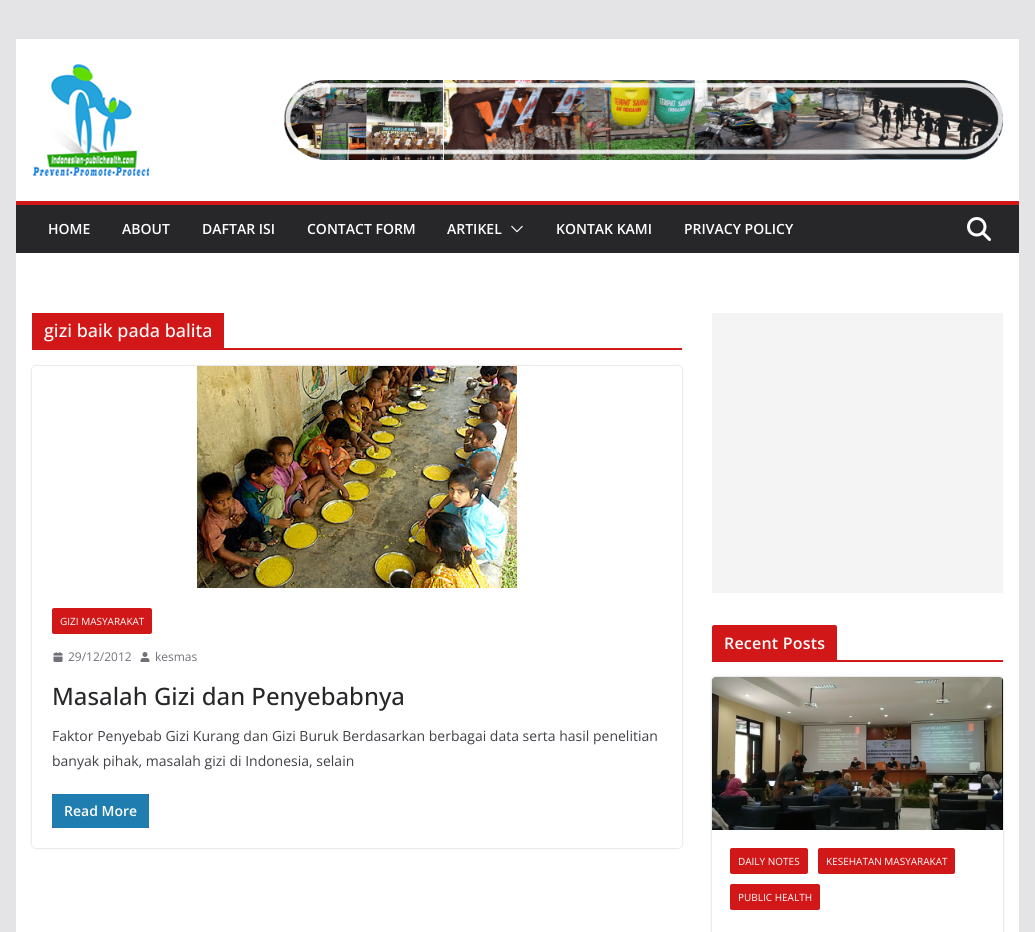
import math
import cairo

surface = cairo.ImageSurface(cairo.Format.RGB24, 1035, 932)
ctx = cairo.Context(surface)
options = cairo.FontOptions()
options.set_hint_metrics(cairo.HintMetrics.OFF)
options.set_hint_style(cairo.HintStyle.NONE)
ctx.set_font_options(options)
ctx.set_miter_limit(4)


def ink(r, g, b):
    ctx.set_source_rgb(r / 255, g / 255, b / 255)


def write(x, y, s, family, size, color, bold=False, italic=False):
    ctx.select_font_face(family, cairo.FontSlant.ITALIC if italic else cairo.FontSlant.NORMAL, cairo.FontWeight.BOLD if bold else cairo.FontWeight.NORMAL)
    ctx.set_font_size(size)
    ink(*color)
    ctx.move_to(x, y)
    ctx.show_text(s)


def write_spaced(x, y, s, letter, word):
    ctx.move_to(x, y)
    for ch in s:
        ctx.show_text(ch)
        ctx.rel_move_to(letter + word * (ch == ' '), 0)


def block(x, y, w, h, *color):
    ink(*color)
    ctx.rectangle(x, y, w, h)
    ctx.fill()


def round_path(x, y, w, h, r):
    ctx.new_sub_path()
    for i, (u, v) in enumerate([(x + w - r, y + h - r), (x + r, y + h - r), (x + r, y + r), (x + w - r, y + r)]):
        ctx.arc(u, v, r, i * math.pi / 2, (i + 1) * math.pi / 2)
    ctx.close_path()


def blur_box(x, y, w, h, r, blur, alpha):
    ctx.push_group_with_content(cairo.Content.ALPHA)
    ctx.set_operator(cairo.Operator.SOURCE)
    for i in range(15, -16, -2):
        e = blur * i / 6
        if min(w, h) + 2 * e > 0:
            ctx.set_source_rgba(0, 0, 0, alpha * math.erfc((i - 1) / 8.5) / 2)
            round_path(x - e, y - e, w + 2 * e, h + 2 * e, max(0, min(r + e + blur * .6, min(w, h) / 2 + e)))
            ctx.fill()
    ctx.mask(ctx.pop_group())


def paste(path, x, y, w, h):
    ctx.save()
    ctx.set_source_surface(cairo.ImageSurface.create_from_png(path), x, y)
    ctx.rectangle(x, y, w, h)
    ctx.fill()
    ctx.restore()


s1 = dict(family="Open Sans SemiBold", size=14, color=(255, 255, 255))
s2 = dict(family="Open Sans Medium", size=18, color=(255, 255, 255))
s3 = dict(family="Open Sans", size=10, color=(255, 255, 255))
s4 = dict(family="Open Sans", size=12, color=(113, 113, 122))
s5 = dict(family="Open Sans Medium", size=24, color=(39, 39, 42))
s6 = dict(family="Open Sans", size=14, color=(63, 63, 70))

ink(228, 228, 231)
ctx.paint()
block(16, 39, 1003, 162, 255, 255, 255)
paste("pic1.png", 32, 64, 118, 113)
paste("pic2.png", 284, 80, 719, 80)
block(16, 205, 1003, 48, 39, 39, 42)
block(16, 201, 1003, 4, 209, 23, 23)
write(48, 234, "HOME", **s1)
write(122, 234, "ABOUT", **s1)
write(202, 234, "DAFTAR ISI", **s1)
write(307, 234, "CONTACT FORM", **s1)
write(447, 234, "ARTIKEL", **s1)
paste("pic3.png", 511, 225, 12, 8)
write(556, 234, "KONTAK KAMI", **s1)
write(684, 234, "PRIVACY POLICY", **s1)
paste("pic4.png", 967, 217, 24, 24)
block(16, 253, 1003, 679, 255, 255, 255)
block(32, 348, 650, 2, 209, 23, 23)
block(32, 313, 192, 35, 209, 23, 23)
write(44, 337, "gizi baik pada balita", **s2)
ctx.save()
ctx.set_fill_rule(cairo.FillRule.EVEN_ODD)
ctx.new_path()
ctx.move_to(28, 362)
ctx.line_to(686, 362)
ctx.line_to(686, 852)
ctx.line_to(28, 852)
ctx.close_path()
ctx.move_to(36, 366)
ctx.line_to(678, 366)
ctx.curve_to(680, 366, 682, 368, 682, 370)
ctx.line_to(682, 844)
ctx.curve_to(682, 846, 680, 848, 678, 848)
ctx.line_to(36, 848)
ctx.curve_to(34, 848, 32, 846, 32, 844)
ctx.line_to(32, 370)
ctx.curve_to(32, 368, 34, 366, 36, 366)
ctx.close_path()
ctx.clip()
ink(0, 0, 0)
blur_box(32, 366, 650, 482, 4, 1, 0.24)
ctx.restore()
paste("pic5.png", 197, 366, 320, 222)
ink(209, 23, 23)
round_path(52, 608, 100, 26, 2)
ctx.fill()
write(60, 625, "GIZI MASYARAKAT", **s3)
paste("pic6.png", 53, 652, 10, 10)
write(68, 661, "29/12/2012", **s4)
paste("pic7.png", 140, 652, 10, 10)
write(155, 661, "kesmas", **s4)
write(52, 705, "Masalah Gizi dan Penyebabnya", **s5)
write(52, 741, "Faktor Penyebab Gizi Kurang dan Gizi Buruk Berdasarkan berbagai data serta hasil penelitian", **s6)
write(52, 766, "banyak pihak, masalah gizi di Indonesia, selain", **s6)
block(52, 794, 97, 34, 209, 23, 23)
ink(32, 125, 175)
round_path(52, 794, 97, 34, 2)
ctx.fill()
write(64, 816, "Read More", **s1)
block(712, 313, 291, 280, 244, 244, 245)
block(712, 660, 291, 2, 209, 23, 23)
ctx.new_path()
ctx.move_to(714, 625)
ctx.line_to(835, 625)
ctx.curve_to(836, 625, 837, 626, 837, 627)
ctx.line_to(837, 660)
ctx.line_to(712, 660)
ctx.line_to(712, 627)
ctx.curve_to(712, 626, 713, 625, 714, 625)
ctx.close_path()
ctx.fill()
ctx.set_font_size(16)
ink(255, 255, 255)
write_spaced(724, 649, "Recent Posts", 0.2, 0)
ctx.save()
ctx.set_fill_rule(cairo.FillRule.EVEN_ODD)
ctx.new_path()
ctx.move_to(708, 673)
ctx.line_to(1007, 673)
ctx.line_to(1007, 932)
ctx.line_to(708, 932)
ctx.close_path()
ctx.move_to(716, 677)
ctx.line_to(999, 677)
ctx.curve_to(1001, 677, 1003, 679, 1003, 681)
ctx.line_to(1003, 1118)
ctx.curve_to(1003, 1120, 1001, 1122, 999, 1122)
ctx.line_to(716, 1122)
ctx.curve_to(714, 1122, 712, 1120, 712, 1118)
ctx.line_to(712, 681)
ctx.curve_to(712, 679, 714, 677, 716, 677)
ctx.close_path()
ctx.clip()
ink(0, 0, 0)
blur_box(712, 677, 291, 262, 4, 1, 0.24)
ctx.restore()
paste("pic8.png", 712, 677, 291, 153)
ink(209, 23, 23)
round_path(730, 848, 78, 26, 2)
ctx.fill()
write(738, 865, "DAILY NOTES", **s3)
ink(209, 23, 23)
round_path(818, 848, 137, 26, 2)
ctx.fill()
write(826, 865, "KESEHATAN MASYARAKAT", **s3)
ink(209, 23, 23)
round_path(730, 884, 90, 26, 2)
ctx.fill()
write(738, 901, "PUBLIC HEALTH", **s3)
surface.write_to_png("screenshot.png")
